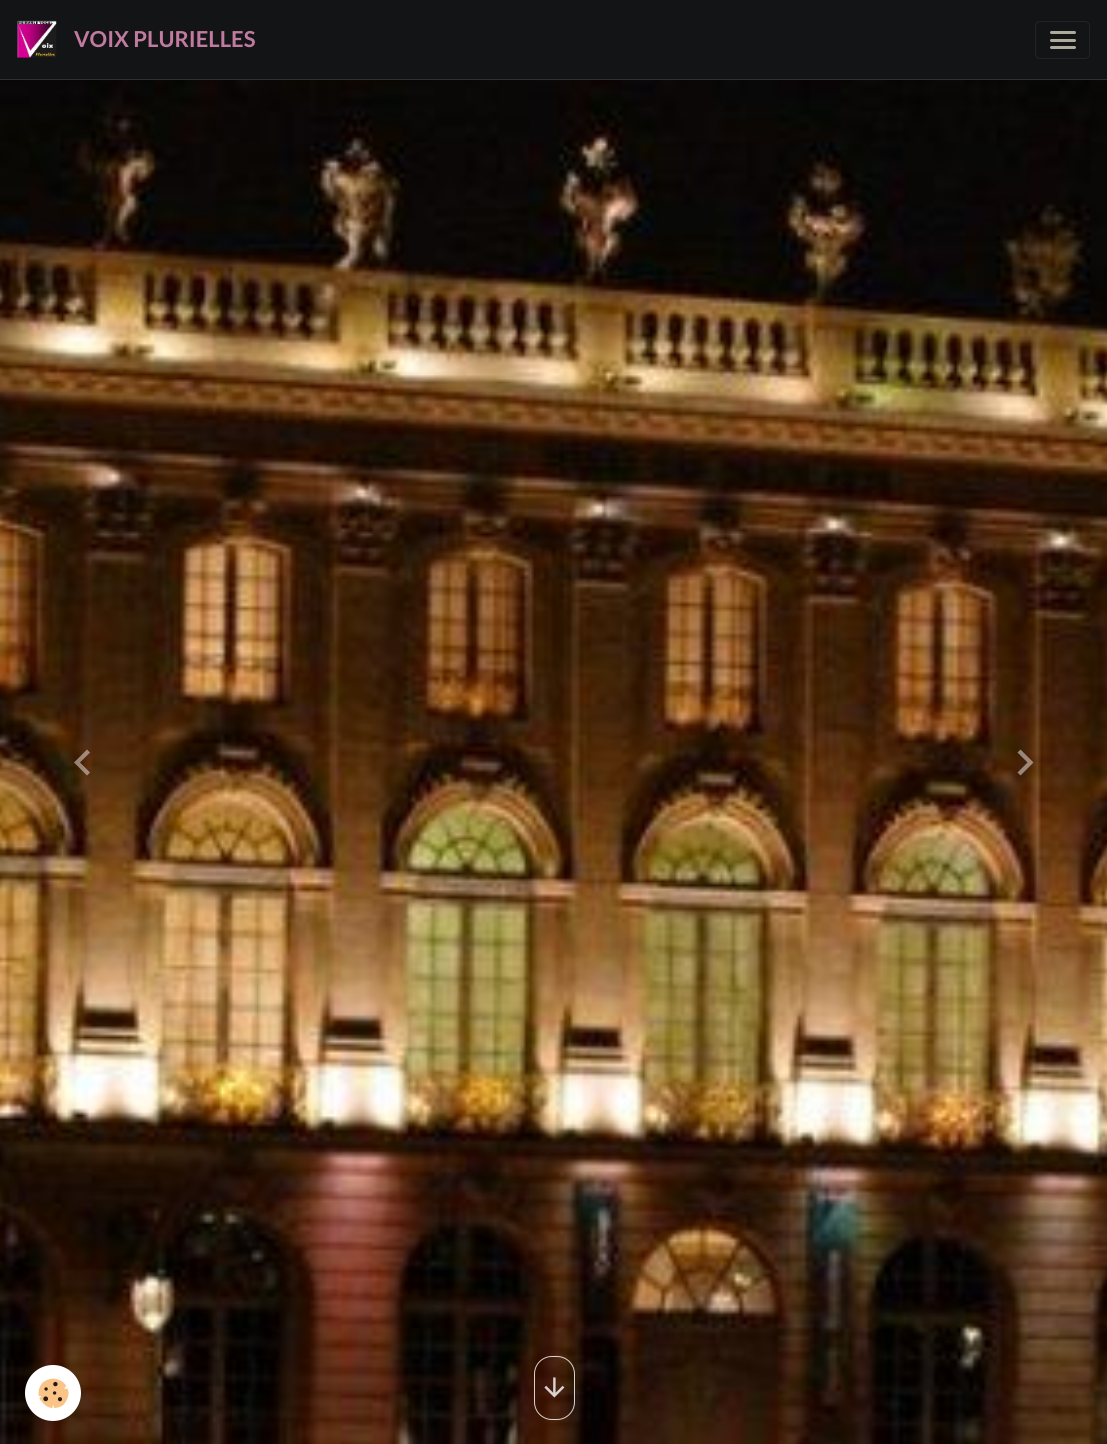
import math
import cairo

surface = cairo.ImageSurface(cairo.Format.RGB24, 1107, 1444)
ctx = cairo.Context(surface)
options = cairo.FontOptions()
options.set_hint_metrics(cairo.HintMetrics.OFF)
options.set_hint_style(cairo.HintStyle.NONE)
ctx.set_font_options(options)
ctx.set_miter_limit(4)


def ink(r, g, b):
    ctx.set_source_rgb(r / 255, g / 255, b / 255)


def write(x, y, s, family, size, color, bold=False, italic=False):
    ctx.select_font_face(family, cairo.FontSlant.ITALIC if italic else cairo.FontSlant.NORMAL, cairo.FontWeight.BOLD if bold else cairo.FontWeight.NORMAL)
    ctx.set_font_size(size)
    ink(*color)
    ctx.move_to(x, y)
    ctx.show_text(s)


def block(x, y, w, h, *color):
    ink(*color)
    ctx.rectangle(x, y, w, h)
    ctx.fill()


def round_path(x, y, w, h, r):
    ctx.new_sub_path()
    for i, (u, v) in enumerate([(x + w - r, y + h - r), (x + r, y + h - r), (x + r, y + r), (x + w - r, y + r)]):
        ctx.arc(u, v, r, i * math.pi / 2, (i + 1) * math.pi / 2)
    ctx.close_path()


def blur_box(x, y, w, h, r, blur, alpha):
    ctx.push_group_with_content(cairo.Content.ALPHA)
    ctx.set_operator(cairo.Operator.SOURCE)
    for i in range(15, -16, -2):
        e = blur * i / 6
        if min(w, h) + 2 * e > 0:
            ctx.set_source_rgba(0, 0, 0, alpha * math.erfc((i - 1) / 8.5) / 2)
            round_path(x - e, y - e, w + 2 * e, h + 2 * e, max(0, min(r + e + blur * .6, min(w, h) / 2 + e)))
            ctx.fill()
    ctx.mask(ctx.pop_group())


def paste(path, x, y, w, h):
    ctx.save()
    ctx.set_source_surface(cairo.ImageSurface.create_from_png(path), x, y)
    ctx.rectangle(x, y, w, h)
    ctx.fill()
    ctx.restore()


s1 = dict(family="Lato", size=22, color=(194, 123, 160), bold=True)

ink(19, 20, 22)
ctx.paint()
block(0, 79, 1107, 1, 47, 47, 47)
paste("pic1.png", 17, 20, 40, 38)
write(74, 47, "VOIX PLURIELLES", **s1)
round_path(1035.5, 21.5, 54, 37, 4.5)
ink(34, 35, 35)
ctx.set_line_width(1)
ctx.stroke()
ink(173, 171, 156)
round_path(1050, 31, 26, 3, 1.5)
ctx.fill()
round_path(1050, 39, 26, 3, 1.5)
ctx.fill()
round_path(1050, 46, 26, 3, 1.5)
ctx.fill()
paste("pic2.png", 0, 80, 1107, 1364)
ctx.set_source_rgba(0.933, 0.933, 0.933, 0.5)
ctx.new_path()
ctx.move_to(90, 752.5)
ctx.line_to(80, 762.5)
ctx.line_to(90, 772.5)
ctx.line_to(87, 775.5)
ctx.line_to(74, 762.5)
ctx.line_to(87, 749.5)
ctx.close_path()
ctx.fill()
ctx.new_path()
ctx.move_to(1020.5, 749.5)
ctx.line_to(1033.5, 762.5)
ctx.line_to(1020.5, 775.5)
ctx.line_to(1017.5, 772.5)
ctx.line_to(1027.5, 762.5)
ctx.line_to(1017.5, 752.5)
ctx.close_path()
ctx.fill()
round_path(534.5, 1356.5, 40, 63, 17.5)
ctx.set_source_rgba(1, 1, 1, 0.8)
ctx.stroke()
paste("pic3.png", 544, 1377, 21, 21)
ink(0, 0, 0)
blur_box(25, 1369, 56, 56, 28, 6, 0.24)
ink(255, 255, 255)
ctx.arc(53, 1393, 28, 0, 2 * math.pi)
ctx.fill()
paste("pic4.png", 38, 1378, 31, 30)
surface.write_to_png("screenshot.png")
